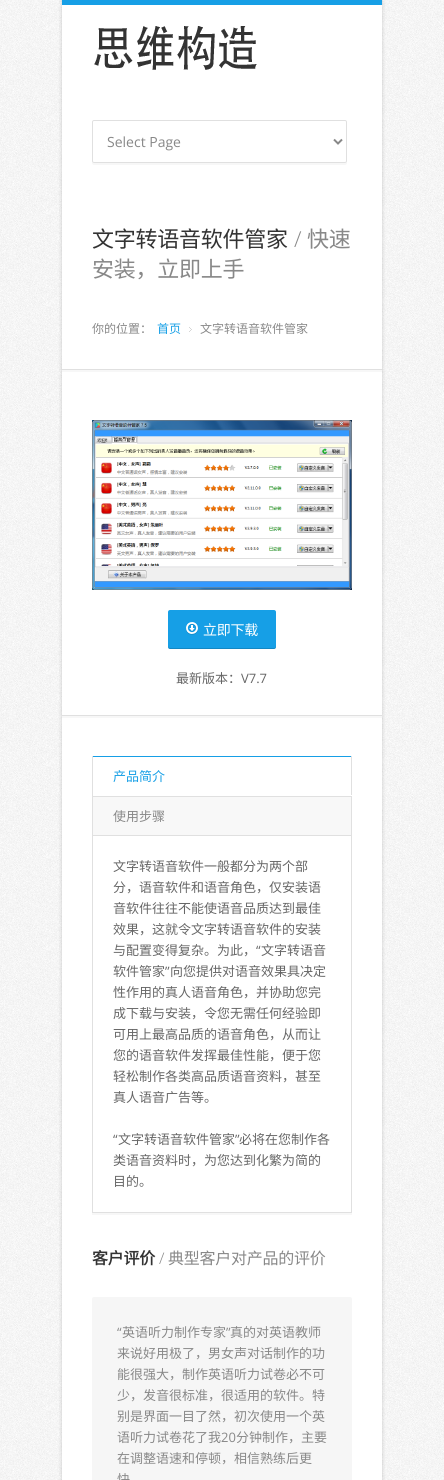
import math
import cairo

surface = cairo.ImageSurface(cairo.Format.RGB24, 444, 1480)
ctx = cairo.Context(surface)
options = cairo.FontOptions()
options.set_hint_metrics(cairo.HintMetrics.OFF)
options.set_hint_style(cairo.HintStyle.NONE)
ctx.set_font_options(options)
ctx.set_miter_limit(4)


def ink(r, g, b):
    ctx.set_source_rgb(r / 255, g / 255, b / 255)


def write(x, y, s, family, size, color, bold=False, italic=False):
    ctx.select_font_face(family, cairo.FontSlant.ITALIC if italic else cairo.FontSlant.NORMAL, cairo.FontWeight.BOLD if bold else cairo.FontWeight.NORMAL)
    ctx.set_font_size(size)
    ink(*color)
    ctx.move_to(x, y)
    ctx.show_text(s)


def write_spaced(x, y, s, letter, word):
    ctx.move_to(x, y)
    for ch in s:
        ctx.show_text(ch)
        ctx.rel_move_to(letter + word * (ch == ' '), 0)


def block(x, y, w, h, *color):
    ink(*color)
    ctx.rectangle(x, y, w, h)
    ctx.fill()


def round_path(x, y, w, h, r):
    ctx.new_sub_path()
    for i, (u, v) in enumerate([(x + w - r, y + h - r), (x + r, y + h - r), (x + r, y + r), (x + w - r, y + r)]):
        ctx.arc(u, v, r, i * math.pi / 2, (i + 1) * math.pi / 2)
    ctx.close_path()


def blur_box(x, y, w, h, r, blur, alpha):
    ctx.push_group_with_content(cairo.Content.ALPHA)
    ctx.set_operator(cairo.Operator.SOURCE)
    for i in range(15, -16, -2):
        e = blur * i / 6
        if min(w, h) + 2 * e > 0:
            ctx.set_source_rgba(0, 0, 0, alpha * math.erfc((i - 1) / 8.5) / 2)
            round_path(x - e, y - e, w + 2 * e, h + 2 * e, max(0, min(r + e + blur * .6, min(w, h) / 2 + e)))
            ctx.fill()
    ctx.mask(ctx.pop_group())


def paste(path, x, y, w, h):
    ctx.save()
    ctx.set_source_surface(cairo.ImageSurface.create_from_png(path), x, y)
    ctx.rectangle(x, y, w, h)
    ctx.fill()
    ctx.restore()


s1 = dict(family="Open Sans", size=14, color=(136, 136, 136))
s2 = dict(family="Noto Sans CJK SC", size=12, color=(136, 136, 136))
s3 = dict(family="Noto Sans CJK SC", size=12, color=(22, 159, 230))
s4 = dict(family="Noto Sans CJK SC", size=13, color=(102, 102, 102))
s5 = dict(family="Open Sans", size=13, color=(102, 102, 102))
s6 = dict(family="Noto Sans CJK SC", size=13, color=(22, 159, 230))
s7 = dict(family="Noto Sans CJK SC", size=13, color=(136, 136, 136))
s8 = dict(family="Open Sans", size=13, color=(136, 136, 136))

ink(255, 255, 255)
ctx.paint()
paste("pic1.png", 0, 0, 444, 1480)
ink(0, 0, 0)
blur_box(62, 0, 320, 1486, 0, 2, 0.2)
block(62, 5, 320, 1475, 255, 255, 255)
block(62, 0, 320, 5, 22, 159, 230)
paste("pic2.png", 94, 26, 163, 44)
ink(247, 247, 247)
ctx.new_path()
ctx.move_to(92, 161)
ctx.line_to(92, 163)
ctx.curve_to(92, 164, 93, 165, 94, 165)
ctx.line_to(345, 165)
ctx.curve_to(346, 165, 347, 164, 347, 163)
ctx.line_to(347, 161)
ctx.curve_to(347, 162, 346, 163, 345, 163)
ctx.line_to(94, 163)
ctx.curve_to(93, 163, 92, 162, 92, 161)
ctx.close_path()
ctx.fill()
round_path(92.5, 120.5, 254, 42, 1.5)
ink(224, 224, 224)
ctx.set_line_width(1)
ctx.stroke()
ctx.new_path()
ctx.move_to(334, 139.5)
ctx.line_to(338, 143.5)
ctx.line_to(342, 139.5)
ink(136, 136, 136)
ctx.set_line_width(2)
ctx.stroke()
write(107, 147, "Select Page", **s1)
block(62, 370, 320, 2, 247, 247, 247)
block(62, 369, 320, 1, 224, 224, 224)
ctx.select_font_face("Noto Sans CJK SC")
ctx.set_font_size(22)
ink(51, 51, 51)
write_spaced(92, 247, "文字转语音软件管家", -0.25, 0)
ctx.select_font_face("Open Sans Light")
ink(136, 136, 136)
write_spaced(294, 247, "/", -0.25, 0)
ctx.select_font_face("Noto Sans CJK SC")
write_spaced(307, 247, "快速", -0.25, 0)
write_spaced(92, 277, "安装，立即上手", -0.25, 0)
write(92, 333, "你的位置：", **s2)
paste("pic3.png", 189, 327, 3, 5)
write(157, 333, "首页", **s3)
write(200, 333, "文字转语音软件管家", **s2)
paste("pic4.png", 92, 420, 260, 170)
ink(22, 159, 230)
round_path(168, 610, 108, 39, 2)
ctx.fill()
ctx.set_source_rgba(0, 0, 0, 0.15)
ctx.new_path()
ctx.move_to(168, 646)
ctx.curve_to(168, 647, 168, 649, 170, 649)
ctx.line_to(274, 649)
ctx.curve_to(276, 649, 276, 647, 276, 646)
ctx.curve_to(276, 647, 275, 648, 274, 648)
ctx.line_to(170, 648)
ctx.curve_to(169, 648, 168, 647, 168, 646)
ctx.close_path()
ctx.fill()
paste("pic5.png", 186, 622, 12, 13)
ctx.set_font_size(14)
ink(255, 255, 255)
write_spaced(203, 635, "立即下载", -0.25, 0)
write(176, 683, "最新版本：", **s4)
write(241, 683, "V7.7", **s5)
block(62, 716, 320, 2, 247, 247, 247)
block(62, 715, 320, 1, 224, 224, 224)
block(92, 756, 260, 1, 22, 159, 230)
block(351, 756, 1, 40, 224, 224, 224)
block(351, 795, 1, 1, 255, 255, 255)
block(92, 756, 1, 40, 224, 224, 224)
write(113, 781, "产品简介", **s6)
ctx.rectangle(92.5, 835.5, 259, 377)
ink(224, 224, 224)
ctx.set_line_width(1)
ctx.stroke()
ink(248, 248, 248)
ctx.rectangle(92.5, 796.5, 259, 39)
ctx.fill_preserve()
ink(224, 224, 224)
ctx.stroke()
write(113, 821, "使用步骤", **s7)
block(92, 1213, 260, 2, 247, 247, 247)
write(113, 871, "文字转语音软件一般都分为两个部", **s4)
write(113, 892, "分，语音软件和语音角色，仅安装语", **s4)
write(113, 913, "音软件往往不能使语音品质达到最佳", **s4)
write(113, 934, "效果，这就令文字转语音软件的安装", **s4)
write(113, 955, "与配置变得复杂。为此，", **s4)
write(256, 955, "“", **s5)
write(261, 955, "文字转语音", **s4)
write(113, 976, "软件管家", **s4)
write(165, 976, "”", **s5)
write(170, 976, "向您提供对语音效果具决定", **s4)
write(113, 997, "性作用的真人语音角色，并协助您完", **s4)
write(113, 1018, "成下载与安装，令您无需任何经验即", **s4)
write(113, 1039, "可用上最高品质的语音角色，从而让", **s4)
write(113, 1060, "您的语音软件发挥最佳性能，便于您", **s4)
write(113, 1081, "轻松制作各类高品质语音资料，甚至", **s4)
write(113, 1102, "真人语音广告等。", **s4)
write(113, 1144, "“", **s5)
write(118, 1144, "文字转语音软件管家", **s4)
write(235, 1144, "”", **s5)
write(239, 1144, "必将在您制作各", **s4)
write(113, 1165, "类语音资料时，为您达到化繁为简的", **s4)
write(113, 1186, "目的。", **s4)
ctx.select_font_face("Noto Sans CJK SC", cairo.FontSlant.NORMAL, cairo.FontWeight.BOLD)
ctx.set_font_size(16)
ink(51, 51, 51)
write_spaced(92, 1264, "客户评价", -0.25, 0)
ctx.select_font_face("Open Sans Light")
ink(136, 136, 136)
write_spaced(159, 1264, "/", -0.25, 0)
ctx.select_font_face("Noto Sans CJK SC")
write_spaced(168, 1264, "典型客户对产品的评价", -0.25, 0)
ink(246, 246, 246)
round_path(92, 1297, 260, 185, 2)
ctx.fill()
write(117, 1337, "“", **s8)
write(122, 1337, "英语听力制作专家", **s7)
write(226, 1337, "”", **s8)
write(230, 1337, "真的对英语教师", **s7)
write(117, 1358, "来说好用极了，男女声对话制作的功", **s7)
write(117, 1379, "能很强大，制作英语听力试卷必不可", **s7)
write(117, 1400, "少，发音很标准，很适用的软件。特", **s7)
write(117, 1421, "别是界面一目了然，初次使用一个英", **s7)
write(117, 1442, "语听力试卷花了我", **s7)
write(221, 1442, "20", **s8)
write(236, 1442, "分钟制作，主要", **s7)
write(117, 1463, "在调整语速和停顿，相信熟练后更", **s7)
write(117, 1484, "快", **s7)
surface.write_to_png("screenshot.png")
